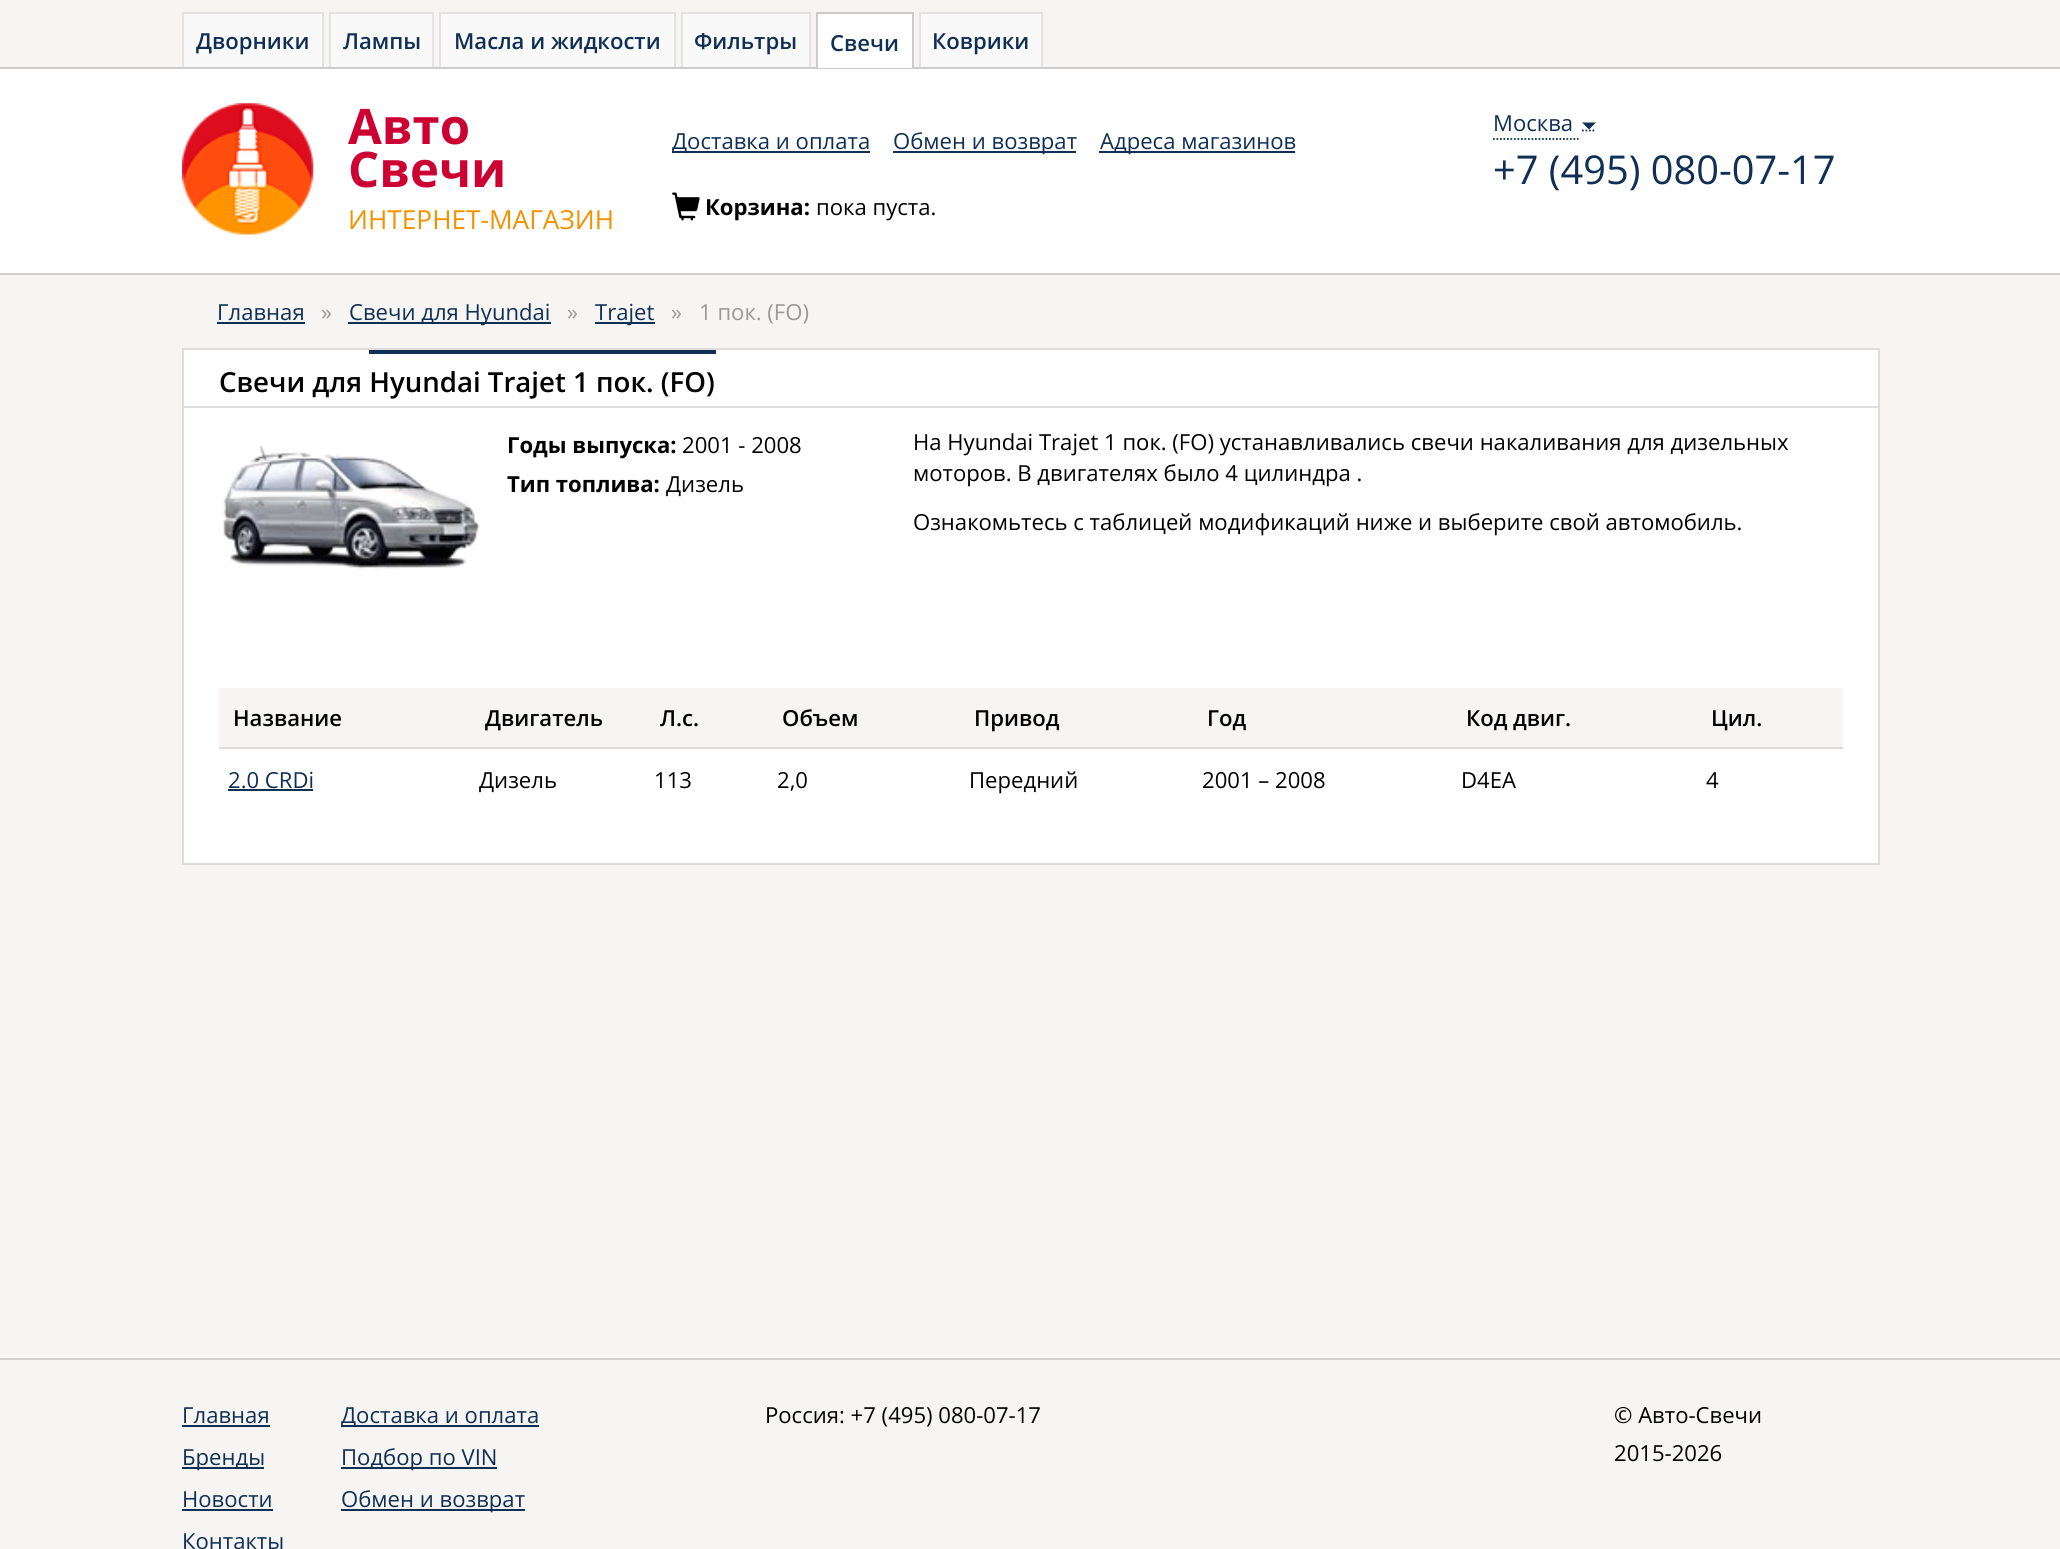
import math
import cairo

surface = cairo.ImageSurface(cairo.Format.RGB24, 2060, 1549)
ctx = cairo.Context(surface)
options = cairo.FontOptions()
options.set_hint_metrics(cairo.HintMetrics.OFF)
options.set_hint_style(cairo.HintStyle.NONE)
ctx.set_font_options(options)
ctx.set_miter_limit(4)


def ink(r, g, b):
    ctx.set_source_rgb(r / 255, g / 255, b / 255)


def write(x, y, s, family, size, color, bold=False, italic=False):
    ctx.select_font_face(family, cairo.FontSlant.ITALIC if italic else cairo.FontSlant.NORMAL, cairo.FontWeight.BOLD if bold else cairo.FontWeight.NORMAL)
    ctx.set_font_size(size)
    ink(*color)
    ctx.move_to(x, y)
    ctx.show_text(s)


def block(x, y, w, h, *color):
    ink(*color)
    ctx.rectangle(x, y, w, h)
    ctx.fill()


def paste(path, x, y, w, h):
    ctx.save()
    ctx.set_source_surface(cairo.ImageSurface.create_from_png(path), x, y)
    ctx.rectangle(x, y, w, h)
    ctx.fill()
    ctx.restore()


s1 = dict(family="Open Sans SemiBold", size=22.1, color=(15, 48, 84))
s2 = dict(family="Open Sans", size=49, color=(204, 0, 51), bold=True)
s3 = dict(family="Open Sans", size=26.25, color=(243, 146, 0))
s4 = dict(family="Open Sans", size=22.1, color=(15, 48, 84))
s5 = dict(family="Open Sans", size=39.75, color=(15, 48, 84))
s6 = dict(family="Open Sans", size=22.1, color=(0, 0, 0), bold=True)
s7 = dict(family="Open Sans", size=22.1, color=(0, 0, 0))
s8 = dict(family="Open Sans", size=22.1, color=(153, 153, 153))
s9 = dict(family="Open Sans SemiBold", size=27.6, color=(0, 0, 0))
s10 = dict(family="Open Sans SemiBold", size=22.1, color=(0, 0, 0))

ink(246, 245, 243)
ctx.paint()
block(184, 14, 138, 53, 249, 249, 249)
write(196, 49, "Дворники", **s1)
block(182, 12, 142, 2, 227, 227, 227)
block(322, 12, 2, 55, 227, 227, 227)
block(182, 12, 2, 55, 227, 227, 227)
block(331, 14, 101, 53, 249, 249, 249)
write(343, 49, "Лампы", **s1)
block(329, 12, 105, 2, 227, 227, 227)
block(432, 12, 2, 55, 227, 227, 227)
block(329, 12, 2, 55, 227, 227, 227)
block(441, 14, 233, 53, 249, 249, 249)
write(454, 49, "Масла и жидкости", **s1)
block(439, 12, 237, 2, 227, 227, 227)
block(674, 12, 2, 55, 227, 227, 227)
block(439, 12, 2, 55, 227, 227, 227)
block(683, 14, 126, 53, 249, 249, 249)
write(694, 49, "Фильтры", **s1)
block(681, 12, 129, 2, 227, 227, 227)
block(809, 12, 2, 55, 227, 227, 227)
block(681, 12, 2, 55, 227, 227, 227)
block(0, 67, 2060, 2, 204, 204, 204)
block(818, 14, 94, 54, 255, 255, 255)
write(830, 51, "Свечи", **s1)
block(816, 12, 98, 2, 204, 204, 204)
block(912, 12, 2, 56, 204, 204, 204)
block(816, 12, 2, 56, 204, 204, 204)
block(921, 14, 120, 53, 249, 249, 249)
write(932, 49, "Коврики", **s1)
block(919, 12, 124, 2, 227, 227, 227)
block(1041, 12, 2, 55, 227, 227, 227)
block(919, 12, 2, 55, 227, 227, 227)
block(0, 69, 2060, 204, 255, 255, 255)
block(0, 273, 2060, 2, 209, 208, 207)
paste("pic1.png", 182, 103, 132, 132)
write(348, 144, "Авто", **s2)
write(348, 187, "Cвечи", **s2)
write(348, 229, "ИНТЕРНЕТ-МАГАЗИН", **s3)
block(672, 151, 198, 2, 15, 48, 84)
write(672, 149, "Доставка и оплата", **s4)
block(893, 151, 183, 2, 15, 48, 84)
write(893, 149, "Обмен и возврат", **s4)
block(1099, 151, 196, 2, 15, 48, 84)
write(1100, 149, "Адреса магазинов", **s4)
ctx.new_path()
ctx.move_to(1493, 139)
ctx.line_to(1578.5, 139)
ctx.set_line_width(1.8)
ctx.set_dash([1.75, 1.75])
ctx.stroke()
ctx.new_path()
ctx.move_to(1582, 130.5)
ctx.line_to(1596, 130.5)
ctx.stroke()
write(1493, 131, "Москва", **s4)
ctx.new_path()
ctx.move_to(1582, 122.5)
ctx.line_to(1596, 122.5)
ctx.line_to(1589, 129.5)
ctx.close_path()
ctx.fill()
write(1493, 184, "+7 (495) 080-07-17", **s5)
paste("pic2.png", 672, 192, 28, 29)
write(705, 215, "Корзина:", **s6)
write(816, 215, "пока пуста.", **s7)
write(217, 320, "Главная", **s4)
block(217, 322, 88, 2, 15, 48, 84)
write(321, 320, "»", **s8)
block(348, 322, 203, 2, 15, 48, 84)
write(349, 320, "Свечи для Hyundai", **s4)
write(567, 320, "»", **s8)
block(595, 322, 60, 2, 15, 48, 84)
write(595, 320, "Trajet", **s4)
write(671, 320, "»", **s8)
write(699, 320, "1 пок. (FO)", **s8)
ink(255, 255, 255)
ctx.rectangle(183, 349, 1696, 515)
ctx.fill_preserve()
ink(221, 221, 221)
ctx.set_line_width(2)
ctx.set_dash([])
ctx.stroke()
block(184, 406, 1694, 2, 221, 221, 221)
block(369, 350, 347, 4, 15, 48, 84)
write(219, 392, "Свечи для Hyundai Trajet 1 пок. (FO)", **s9)
paste("pic3.png", 223, 445, 257, 124)
write(507, 453, "Годы выпуска:", **s6)
write(682, 453, "2001 - 2008", **s7)
write(507, 492, "Тип топлива:", **s6)
write(666, 492, "Дизель", **s7)
write(913, 450, "На Hyundai Trajet 1 пок. (FO) устанавливались свечи накаливания для дизельных", **s7)
write(913, 481, "моторов. В двигателях было 4 цилиндра .", **s7)
write(913, 530, "Ознакомьтесь с таблицей модификаций ниже и выберите свой автомобиль.", **s7)
block(219, 688, 1624, 59, 246, 245, 243)
write(233, 726, "Название", **s10)
write(485, 726, "Двигатель", **s10)
write(660, 726, "Л.с.", **s10)
write(782, 726, "Объем", **s10)
write(974, 726, "Привод", **s10)
write(1207, 726, "Год", **s10)
write(1466, 726, "Код двиг.", **s10)
write(1711, 726, "Цил.", **s10)
write(228, 788, "2.0 CRDi", **s4)
block(228, 789, 85, 2, 15, 48, 84)
write(479, 788, "Дизель", **s7)
write(654, 788, "113", **s7)
write(777, 788, "2,0", **s7)
write(969, 788, "Передний", **s7)
write(1202, 788, "2001 – 2008", **s7)
write(1461, 788, "D4EA", **s7)
block(219, 747, 1624, 2, 221, 221, 221)
write(1706, 788, "4", **s7)
block(0, 1358, 2060, 2, 209, 208, 207)
write(182, 1423, "Главная", **s4)
block(182, 1425, 88, 2, 15, 48, 84)
block(182, 1467, 82, 2, 15, 48, 84)
write(182, 1465, "Бренды", **s4)
write(182, 1507, "Новости", **s4)
block(182, 1509, 91, 2, 15, 48, 84)
write(182, 1549, "Контакты", **s4)
block(341, 1425, 198, 2, 15, 48, 84)
write(341, 1423, "Доставка и оплата", **s4)
block(341, 1467, 156, 2, 15, 48, 84)
write(341, 1465, "Подбор по VIN", **s4)
block(341, 1509, 184, 2, 15, 48, 84)
write(341, 1507, "Обмен и возврат", **s4)
write(765, 1423, "Россия: +7 (495) 080-07-17", **s7)
write(1614, 1423, "© Авто-Cвечи", **s7)
write(1614, 1461, "2015-2026", **s7)
surface.write_to_png("screenshot.png")
